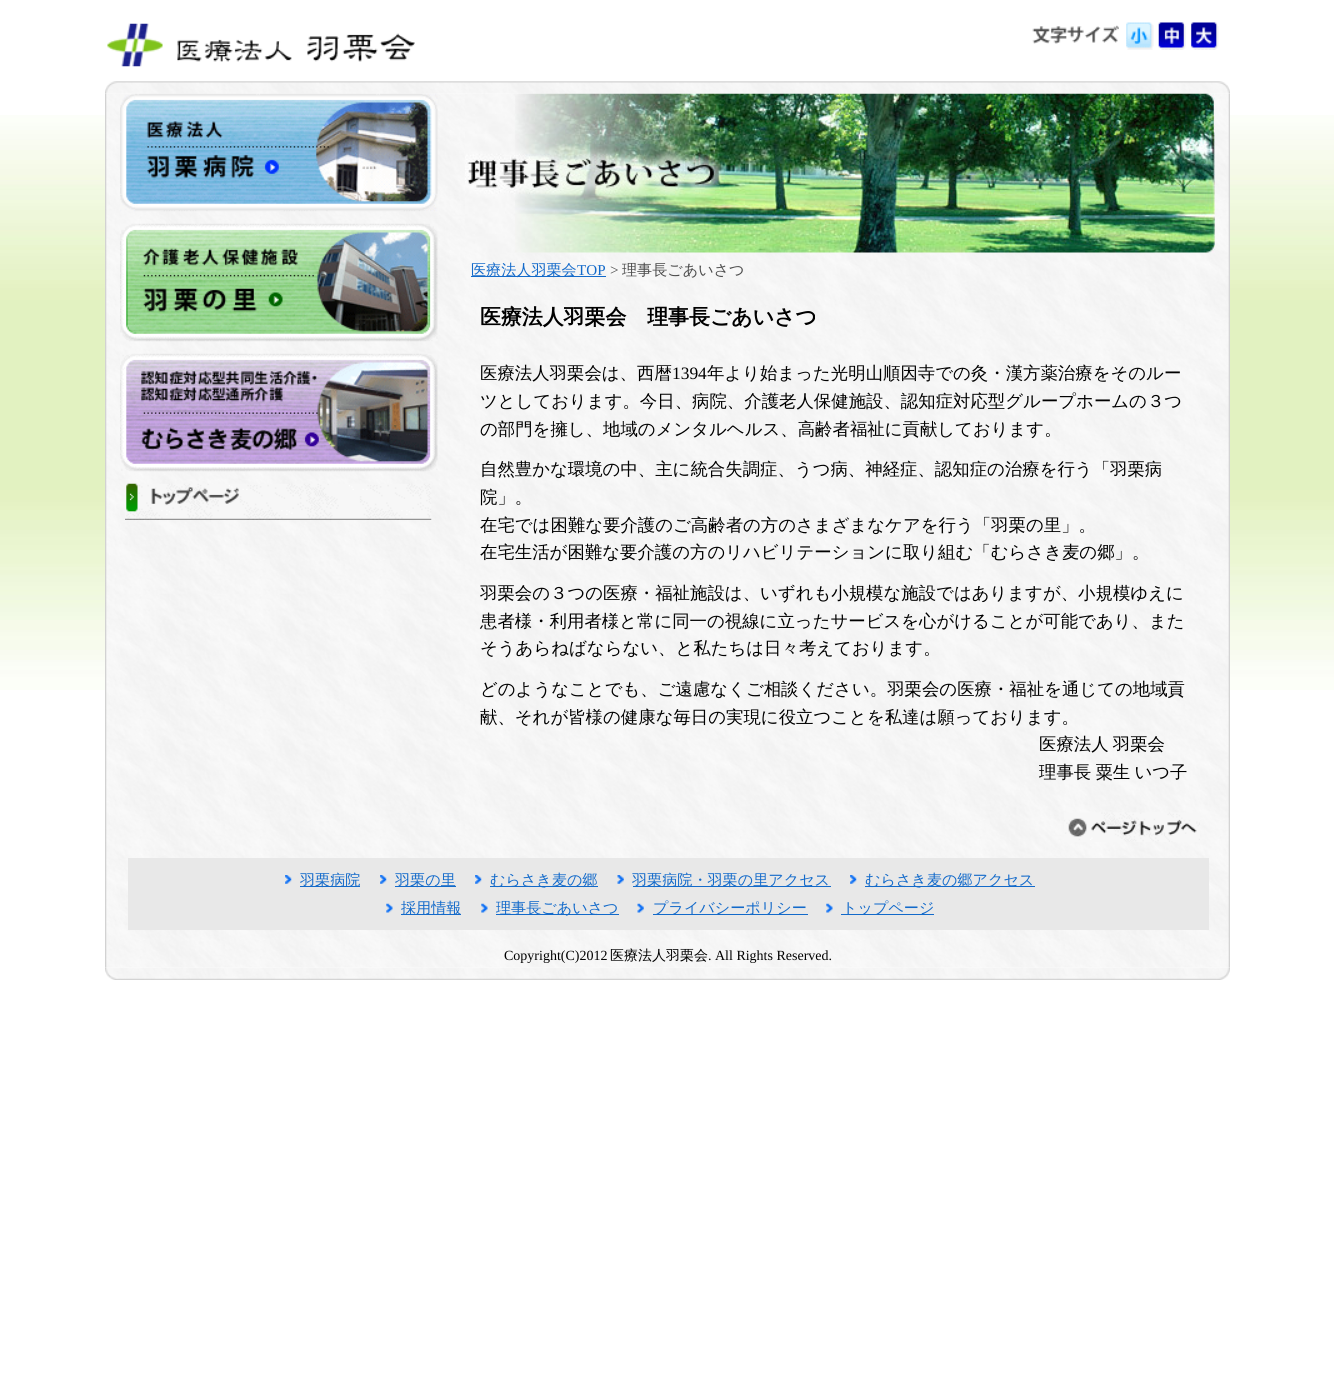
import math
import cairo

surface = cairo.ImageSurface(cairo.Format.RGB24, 1334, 1374)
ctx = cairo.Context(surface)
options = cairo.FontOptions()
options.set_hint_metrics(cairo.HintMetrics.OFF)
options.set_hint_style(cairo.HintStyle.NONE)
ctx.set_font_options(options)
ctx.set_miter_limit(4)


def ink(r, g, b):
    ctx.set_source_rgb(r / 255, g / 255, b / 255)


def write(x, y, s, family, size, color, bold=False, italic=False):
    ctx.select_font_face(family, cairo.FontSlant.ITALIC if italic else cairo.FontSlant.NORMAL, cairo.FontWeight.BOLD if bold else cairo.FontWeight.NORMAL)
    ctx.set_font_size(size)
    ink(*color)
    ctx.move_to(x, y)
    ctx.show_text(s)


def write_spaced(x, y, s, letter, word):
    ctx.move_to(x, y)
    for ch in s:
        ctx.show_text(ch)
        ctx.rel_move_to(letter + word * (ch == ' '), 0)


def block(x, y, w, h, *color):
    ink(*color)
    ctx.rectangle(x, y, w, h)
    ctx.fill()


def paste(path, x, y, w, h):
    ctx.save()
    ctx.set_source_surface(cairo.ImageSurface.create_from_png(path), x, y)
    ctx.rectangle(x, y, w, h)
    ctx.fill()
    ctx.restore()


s1 = dict(family="WenQuanYi Zen Hei Medium", size=15.1, color=(19, 106, 202))
s2 = dict(family="Liberation Serif", size=15.1, color=(19, 106, 202))
s3 = dict(family="Liberation Serif", size=15.1, color=(76, 76, 76))
s4 = dict(family="WenQuanYi Zen Hei Medium", size=15.1, color=(76, 76, 76))
s5 = dict(family="WenQuanYi Zen Hei", size=20.9, color=(0, 0, 0), bold=True)
s6 = dict(family="WenQuanYi Zen Hei Medium", size=17.4, color=(0, 0, 0))
s7 = dict(family="Liberation Serif", size=17.4, color=(0, 0, 0))
s8 = dict(family="Liberation Serif", size=14, color=(0, 0, 0))
s9 = dict(family="WenQuanYi Zen Hei Medium", size=14, color=(0, 0, 0))

ink(255, 255, 255)
ctx.paint()
paste("pic1.png", 0, 115, 1334, 575)
paste("pic2.png", 107, 23, 308, 44)
paste("pic3.png", 1032, 25, 87, 19)
paste("pic4.png", 1126, 22, 28, 28)
paste("pic5.png", 1158, 22, 28, 28)
paste("pic6.png", 1191, 22, 28, 28)
paste("pic7.png", 105, 81, 1125, 13)
paste("pic8.png", 105, 967, 1125, 13)
paste("pic9.png", 105, 94, 1125, 874)
paste("pic10.png", 120, 93, 318, 119)
paste("pic11.png", 120, 223, 318, 119)
paste("pic12.png", 120, 353, 318, 119)
paste("pic13.png", 125, 483, 307, 37)
paste("pic14.png", 465, 93, 750, 160)
block(471, 276, 135, 1, 19, 106, 202)
write(471, 275, "医療法人羽栗会", **s1)
write(577, 275, "TOP", **s2)
write(610, 275, ">", **s3)
write(622, 275, "理事長ごあいさつ", **s4)
write(480, 324, "医療法人羽栗会　理事長ごあいさつ", **s5)
write(480, 379, "医療法人羽栗会は、西暦", **s6)
write(672, 379, "1394", **s7)
write(707, 379, "年より始まった光明山順因寺での灸・漢方薬治療をそのルー", **s6)
write(480, 407, "ツとしております。今日、病院、介護老人保健施設、認知症対応型グループホームの３つ", **s6)
write(480, 435, "の部門を擁し、地域のメンタルヘルス、高齢者福祉に貢献しております。", **s6)
write(480, 475, "自然豊かな環境の中、主に統合失調症、うつ病、神経症、認知症の治療を行う「羽栗病", **s6)
write(480, 503, "院」。", **s6)
write(480, 531, "在宅では困難な要介護のご高齢者の方のさまざまなケアを行う「羽栗の里」。", **s6)
write(480, 558, "在宅生活が困難な要介護の方のリハビリテーションに取り組む「むらさき麦の郷」。", **s6)
write(480, 599, "羽栗会の３つの医療・福祉施設は、いずれも小規模な施設ではありますが、小規模ゆえに", **s6)
write(480, 627, "患者様・利用者様と常に同一の視線に立ったサービスを心がけることが可能であり、また", **s6)
write(480, 654, "そうあらねばならない、と私たちは日々考えております。", **s6)
write(480, 695, "どのようなことでも、ご遠慮なくご相談ください。羽栗会の医療・福祉を通じての地域貢", **s6)
write(480, 723, "献、それが皆様の健康な毎日の実現に役立つことを私達は願っております。", **s6)
write_spaced(1039, 750, "医療法人 羽栗会", 0, -1)
write_spaced(1039, 778, "理事長 粟生 いつ子", 0, -1)
paste("pic15.png", 1064, 812, 136, 30)
block(128, 858, 1081, 72, 232, 232, 232)
paste("pic16.png", 285, 875, 7, 9)
block(300, 886, 60, 1, 19, 106, 202)
write(300, 885, "羽栗病院", **s1)
paste("pic17.png", 380, 875, 7, 9)
block(395, 886, 61, 1, 19, 106, 202)
write(395, 885, "羽栗の里", **s1)
paste("pic16.png", 475, 875, 7, 9)
block(490, 886, 108, 1, 19, 106, 202)
write(490, 885, "むらさき麦の郷", **s1)
paste("pic18.png", 617, 875, 7, 9)
block(633, 886, 198, 1, 19, 106, 202)
write(632, 885, "羽栗病院・羽栗の里アクセス", **s1)
paste("pic17.png", 850, 875, 7, 9)
block(865, 886, 170, 1, 19, 106, 202)
write(865, 885, "むらさき麦の郷アクセス", **s1)
paste("pic19.png", 386, 903, 7, 10)
block(401, 914, 60, 1, 19, 106, 202)
write(401, 913, "採用情報", **s1)
paste("pic19.png", 481, 903, 7, 10)
block(496, 914, 123, 1, 19, 106, 202)
write(496, 913, "理事長ごあいさつ", **s1)
paste("pic20.png", 637, 903, 7, 10)
block(653, 914, 155, 1, 19, 106, 202)
write(653, 913, "プライバシーポリシー", **s1)
paste("pic19.png", 826, 903, 7, 10)
block(841, 914, 93, 1, 19, 106, 202)
write(842, 913, "トップページ", **s1)
write(504, 960, "Copyright(C)2012", **s8)
write(610, 960, "医療法人羽栗会", **s9)
write(708, 960, ". All Rights Reserved.", **s8)
surface.write_to_png("screenshot.png")
